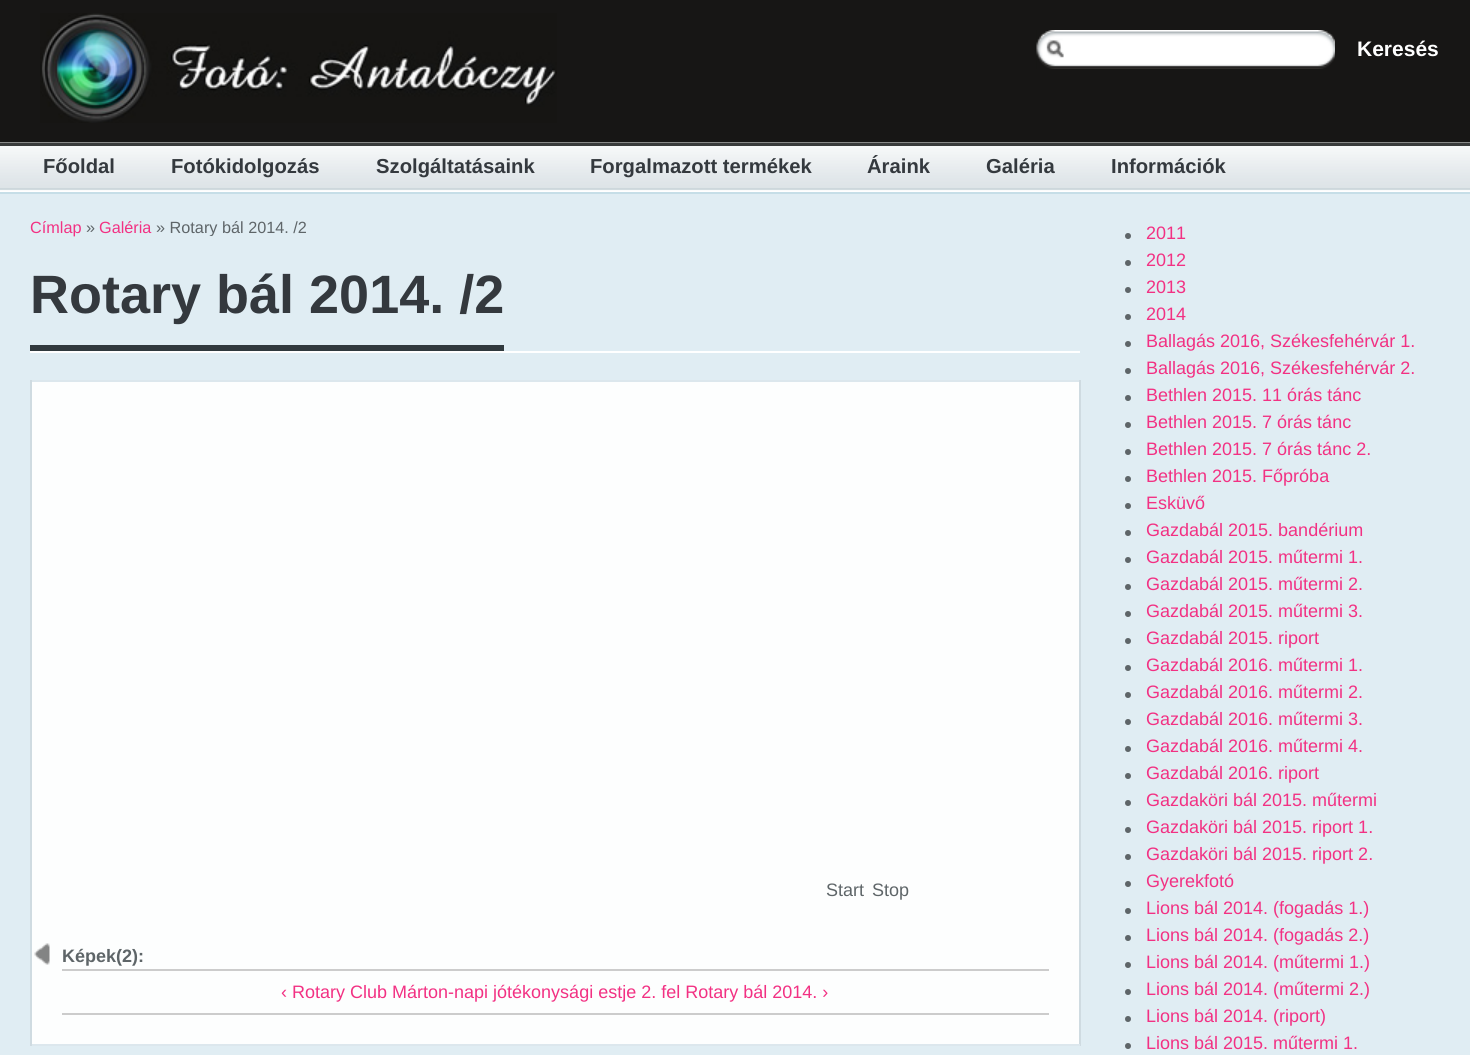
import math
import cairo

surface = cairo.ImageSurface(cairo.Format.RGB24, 1470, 1055)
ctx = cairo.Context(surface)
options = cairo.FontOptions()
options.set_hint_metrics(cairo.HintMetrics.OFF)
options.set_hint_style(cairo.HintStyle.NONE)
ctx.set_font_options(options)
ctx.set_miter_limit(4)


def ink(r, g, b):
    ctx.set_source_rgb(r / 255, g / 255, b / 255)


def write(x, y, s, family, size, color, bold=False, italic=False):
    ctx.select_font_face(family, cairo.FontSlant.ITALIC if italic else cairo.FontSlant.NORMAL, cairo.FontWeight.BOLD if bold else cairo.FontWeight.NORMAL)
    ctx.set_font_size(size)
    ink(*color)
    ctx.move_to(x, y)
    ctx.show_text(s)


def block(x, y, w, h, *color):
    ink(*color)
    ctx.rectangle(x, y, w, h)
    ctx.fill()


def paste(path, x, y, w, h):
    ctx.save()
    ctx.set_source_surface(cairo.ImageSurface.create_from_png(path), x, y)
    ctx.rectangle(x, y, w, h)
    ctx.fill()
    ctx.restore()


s1 = dict(family="Liberation Sans", size=21, color=(255, 255, 255), bold=True)
s2 = dict(family="Liberation Sans", size=20.25, color=(52, 57, 62), bold=True)
s3 = dict(family="Liberation Sans", size=16.25, color=(242, 49, 131))
s4 = dict(family="Liberation Sans", size=16.25, color=(94, 101, 104))
s5 = dict(family="Liberation Sans", size=54, color=(52, 57, 62), bold=True)
s6 = dict(family="Liberation Sans", size=18, color=(94, 101, 104))
s7 = dict(family="Liberation Sans", size=18, color=(94, 101, 104), bold=True)
s8 = dict(family="Liberation Sans", size=18, color=(242, 49, 131))

ink(23, 22, 21)
ctx.paint()
paste("pic1.png", 40, 13, 517, 110)
paste("pic2.png", 1036, 30, 299, 39)
write(1357, 56, "Keresés", **s1)
block(0, 190, 1470, 2, 255, 255, 255)
paste("pic3.png", 0, 142, 1470, 49)
block(0, 143, 1470, 3, 57, 59, 59)
write(43, 173, "Főoldal", **s2)
write(171, 173, "Fotókidolgozás", **s2)
write(376, 173, "Szolgáltatásaink", **s2)
write(590, 173, "Forgalmazott termékek", **s2)
write(867, 173, "Áraink", **s2)
write(986, 173, "Galéria", **s2)
write(1111, 173, "Információk", **s2)
block(0, 194, 1470, 861, 224, 237, 243)
block(0, 192, 1470, 2, 198, 222, 231)
write(30, 233, "Címlap", **s3)
write(86, 233, "»", **s4)
write(99, 233, "Galéria", **s3)
ctx.save()
ctx.rectangle(15, 221, 1080, 15)
ctx.clip()
write(156, 233, "» Rotary bál 2014. /2", **s4)
ctx.restore()
block(30, 345, 474, 6, 48, 57, 61)
write(30, 313, "Rotary bál 2014. /2", **s5)
block(30, 351, 1050, 2, 255, 255, 255)
block(32, 382, 1047, 662, 253, 254, 254)
block(30, 380, 1050, 2, 220, 231, 237)
block(1079, 380, 2, 666, 207, 219, 225)
block(30, 1044, 1050, 2, 220, 231, 237)
block(30, 380, 2, 666, 207, 219, 225)
write(826, 896, "Start", **s6)
write(872, 896, "Stop", **s6)
paste("pic4.png", 34, 943, 16, 22)
write(62, 962, "Képek(2):", **s7)
block(62, 969, 987, 2, 204, 204, 204)
block(62, 1013, 987, 2, 204, 204, 204)
write(281, 998, "‹ Rotary Club Márton-napi jótékonysági estje 2. fel Rotary bál 2014. ›", **s8)
ink(94, 101, 104)
ctx.new_path()
ctx.arc(1128, 236, 3, 0, 2 * math.pi)
ctx.fill()
write(1146, 239, "2011", **s8)
ink(94, 101, 104)
ctx.new_path()
ctx.arc(1128, 263, 3, 0, 2 * math.pi)
ctx.fill()
write(1146, 266, "2012", **s8)
ink(94, 101, 104)
ctx.new_path()
ctx.arc(1128, 290, 3, 0, 2 * math.pi)
ctx.fill()
write(1146, 293, "2013", **s8)
ink(94, 101, 104)
ctx.new_path()
ctx.arc(1128, 317, 3, 0, 2 * math.pi)
ctx.fill()
write(1146, 320, "2014", **s8)
ink(94, 101, 104)
ctx.new_path()
ctx.arc(1128, 344, 3, 0, 2 * math.pi)
ctx.fill()
write(1146, 347, "Ballagás 2016, Székesfehérvár 1.", **s8)
ink(94, 101, 104)
ctx.new_path()
ctx.arc(1128, 371, 3, 0, 2 * math.pi)
ctx.fill()
write(1146, 374, "Ballagás 2016, Székesfehérvár 2.", **s8)
ink(94, 101, 104)
ctx.new_path()
ctx.arc(1128, 398, 3, 0, 2 * math.pi)
ctx.fill()
write(1146, 401, "Bethlen 2015. 11 órás tánc", **s8)
ink(94, 101, 104)
ctx.new_path()
ctx.arc(1128, 425, 3, 0, 2 * math.pi)
ctx.fill()
write(1146, 428, "Bethlen 2015. 7 órás tánc", **s8)
ink(94, 101, 104)
ctx.new_path()
ctx.arc(1128, 452, 3, 0, 2 * math.pi)
ctx.fill()
write(1146, 455, "Bethlen 2015. 7 órás tánc 2.", **s8)
ink(94, 101, 104)
ctx.new_path()
ctx.arc(1128, 479, 3, 0, 2 * math.pi)
ctx.fill()
write(1146, 482, "Bethlen 2015. Főpróba", **s8)
ink(94, 101, 104)
ctx.new_path()
ctx.arc(1128, 506, 3, 0, 2 * math.pi)
ctx.fill()
write(1146, 509, "Esküvő", **s8)
ink(94, 101, 104)
ctx.new_path()
ctx.arc(1128, 533, 3, 0, 2 * math.pi)
ctx.fill()
write(1146, 536, "Gazdabál 2015. bandérium", **s8)
ink(94, 101, 104)
ctx.new_path()
ctx.arc(1128, 560, 3, 0, 2 * math.pi)
ctx.fill()
write(1146, 563, "Gazdabál 2015. műtermi 1.", **s8)
ink(94, 101, 104)
ctx.new_path()
ctx.arc(1128, 587, 3, 0, 2 * math.pi)
ctx.fill()
write(1146, 590, "Gazdabál 2015. műtermi 2.", **s8)
ink(94, 101, 104)
ctx.new_path()
ctx.arc(1128, 614, 3, 0, 2 * math.pi)
ctx.fill()
write(1146, 617, "Gazdabál 2015. műtermi 3.", **s8)
ink(94, 101, 104)
ctx.new_path()
ctx.arc(1128, 641, 3, 0, 2 * math.pi)
ctx.fill()
write(1146, 644, "Gazdabál 2015. riport", **s8)
ink(94, 101, 104)
ctx.new_path()
ctx.arc(1128, 668, 3, 0, 2 * math.pi)
ctx.fill()
write(1146, 671, "Gazdabál 2016. műtermi 1.", **s8)
ink(94, 101, 104)
ctx.new_path()
ctx.arc(1128, 695, 3, 0, 2 * math.pi)
ctx.fill()
write(1146, 698, "Gazdabál 2016. műtermi 2.", **s8)
ink(94, 101, 104)
ctx.new_path()
ctx.arc(1128, 722, 3, 0, 2 * math.pi)
ctx.fill()
write(1146, 725, "Gazdabál 2016. műtermi 3.", **s8)
ink(94, 101, 104)
ctx.new_path()
ctx.arc(1128, 749, 3, 0, 2 * math.pi)
ctx.fill()
write(1146, 752, "Gazdabál 2016. műtermi 4.", **s8)
ink(94, 101, 104)
ctx.new_path()
ctx.arc(1128, 776, 3, 0, 2 * math.pi)
ctx.fill()
write(1146, 779, "Gazdabál 2016. riport", **s8)
ink(94, 101, 104)
ctx.new_path()
ctx.arc(1128, 803, 3, 0, 2 * math.pi)
ctx.fill()
write(1146, 806, "Gazdaköri bál 2015. műtermi", **s8)
ink(94, 101, 104)
ctx.new_path()
ctx.arc(1128, 830, 3, 0, 2 * math.pi)
ctx.fill()
write(1146, 833, "Gazdaköri bál 2015. riport 1.", **s8)
ink(94, 101, 104)
ctx.new_path()
ctx.arc(1128, 857, 3, 0, 2 * math.pi)
ctx.fill()
write(1146, 860, "Gazdaköri bál 2015. riport 2.", **s8)
ink(94, 101, 104)
ctx.new_path()
ctx.arc(1128, 884, 3, 0, 2 * math.pi)
ctx.fill()
write(1146, 887, "Gyerekfotó", **s8)
ink(94, 101, 104)
ctx.new_path()
ctx.arc(1128, 911, 3, 0, 2 * math.pi)
ctx.fill()
write(1146, 914, "Lions bál 2014. (fogadás 1.)", **s8)
ink(94, 101, 104)
ctx.new_path()
ctx.arc(1128, 938, 3, 0, 2 * math.pi)
ctx.fill()
write(1146, 941, "Lions bál 2014. (fogadás 2.)", **s8)
ink(94, 101, 104)
ctx.new_path()
ctx.arc(1128, 965, 3, 0, 2 * math.pi)
ctx.fill()
write(1146, 968, "Lions bál 2014. (műtermi 1.)", **s8)
ink(94, 101, 104)
ctx.new_path()
ctx.arc(1128, 992, 3, 0, 2 * math.pi)
ctx.fill()
write(1146, 995, "Lions bál 2014. (műtermi 2.)", **s8)
ink(94, 101, 104)
ctx.new_path()
ctx.arc(1128, 1019, 3, 0, 2 * math.pi)
ctx.fill()
write(1146, 1022, "Lions bál 2014. (riport)", **s8)
ink(94, 101, 104)
ctx.new_path()
ctx.arc(1128, 1046, 3, 0, 2 * math.pi)
ctx.fill()
write(1146, 1049, "Lions bál 2015. műtermi 1.", **s8)
surface.write_to_png("screenshot.png")
